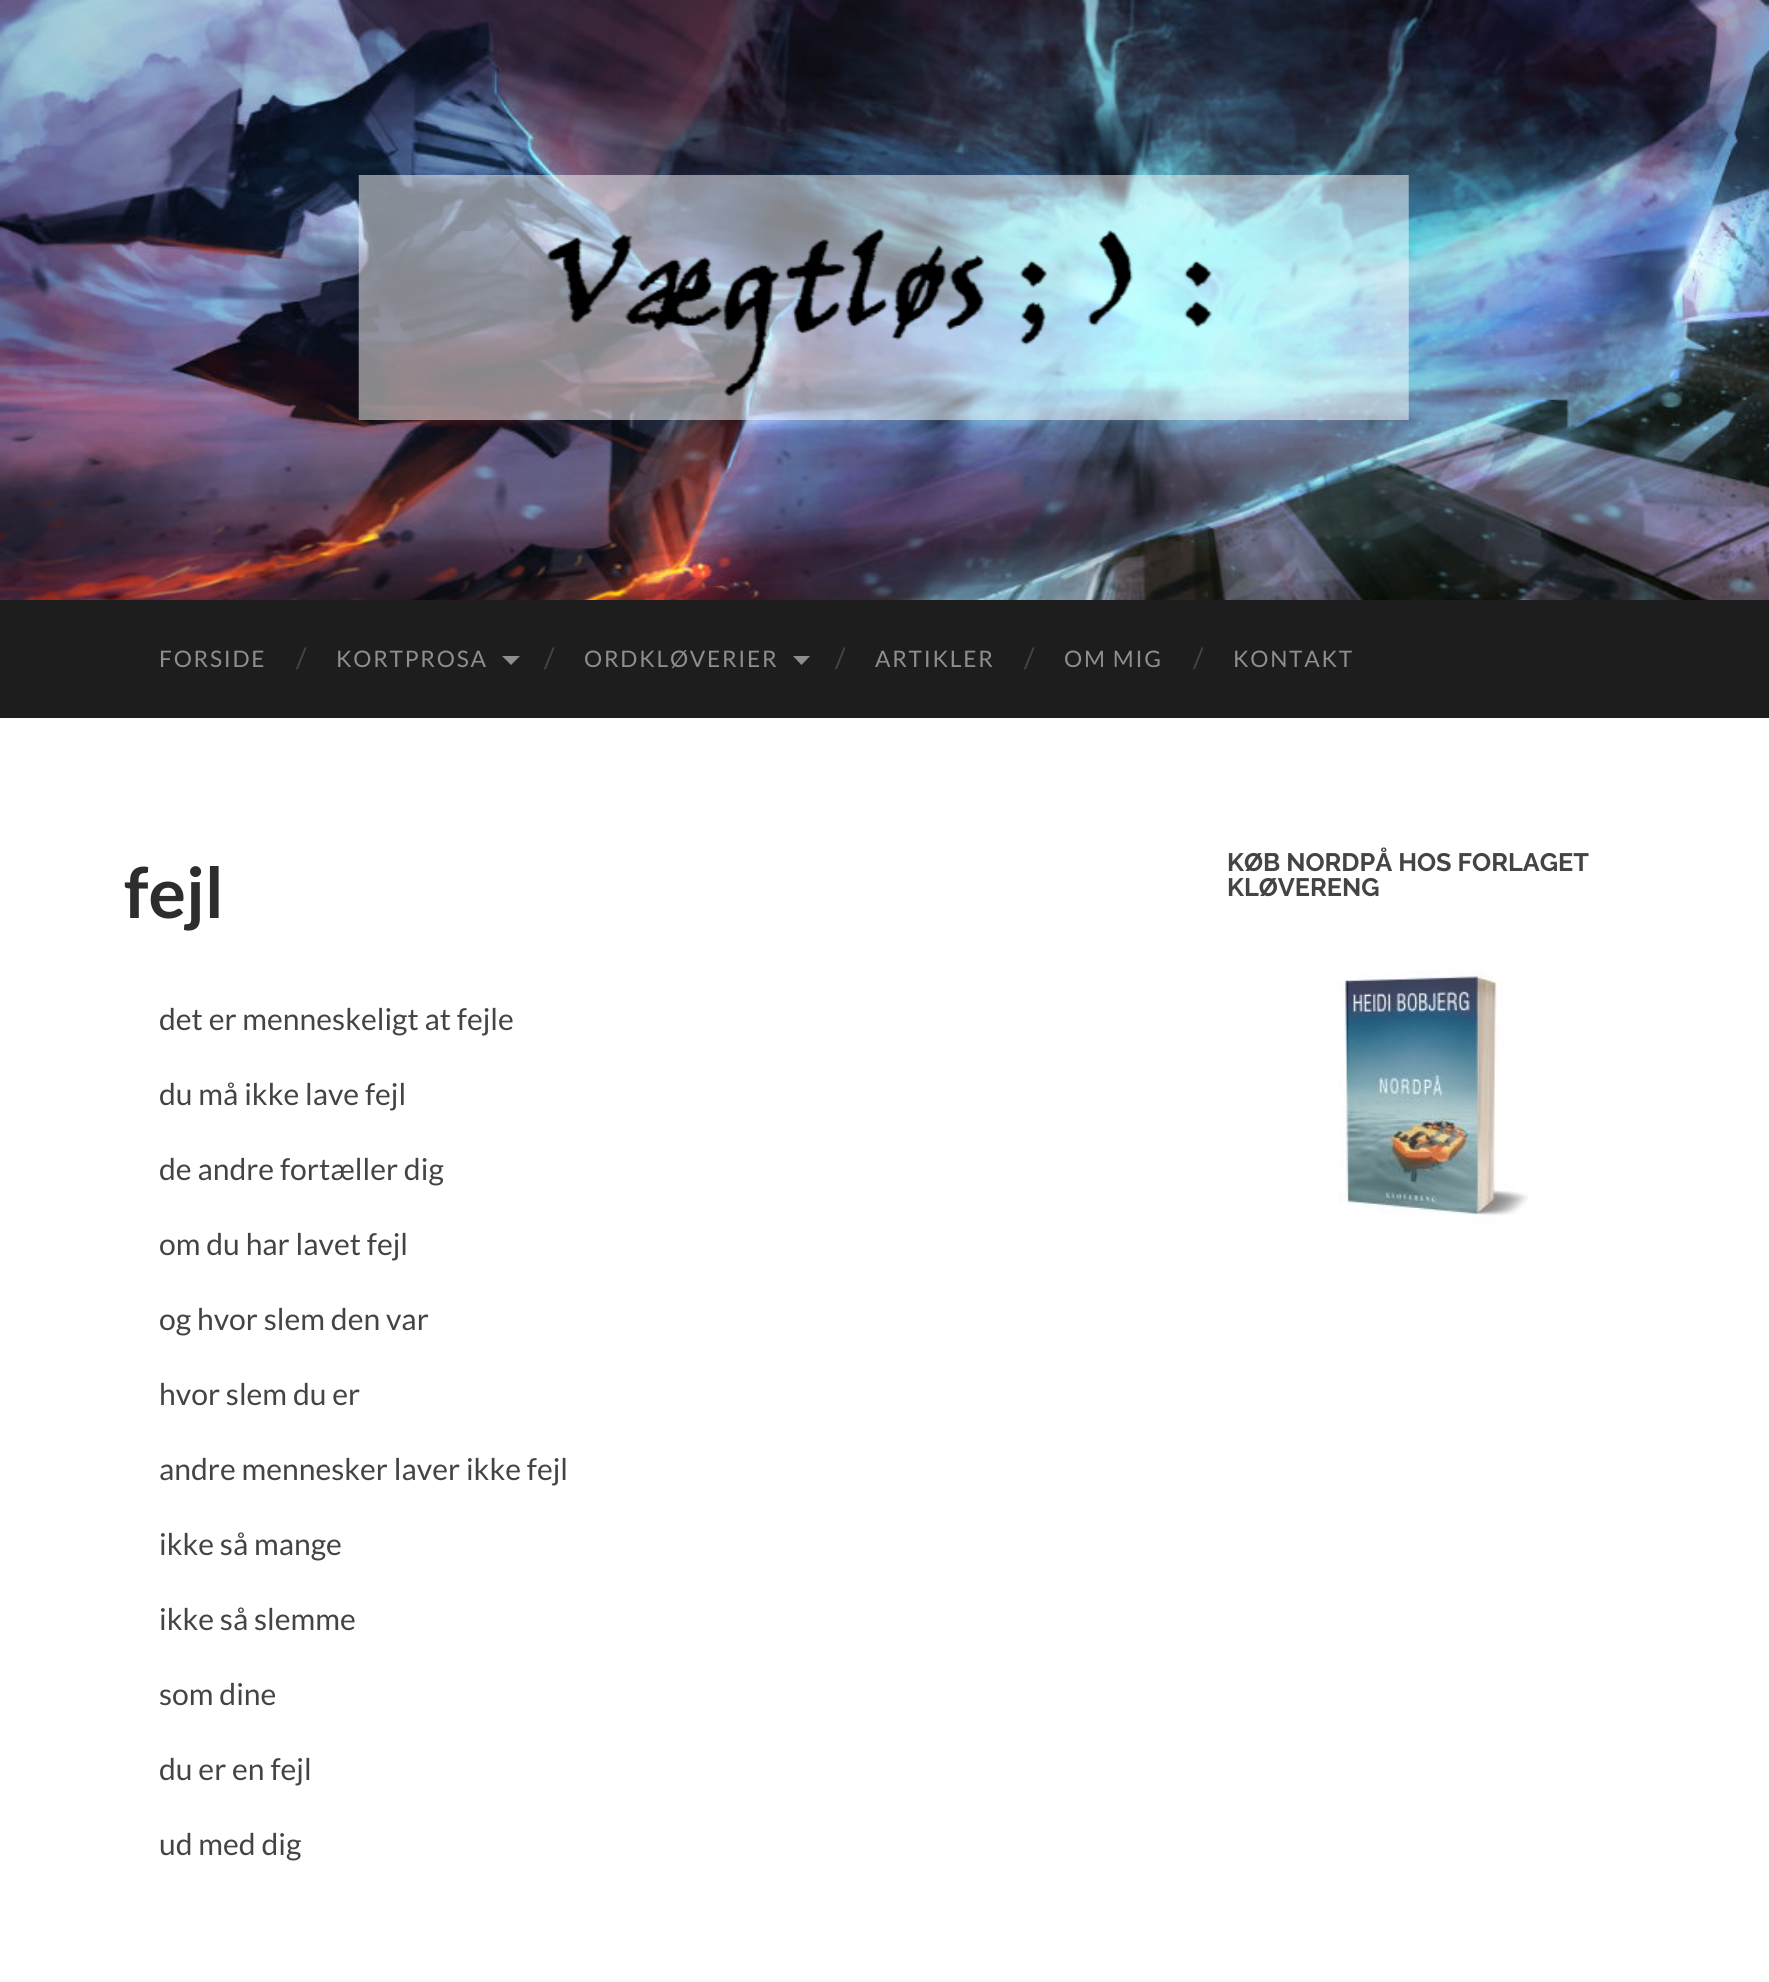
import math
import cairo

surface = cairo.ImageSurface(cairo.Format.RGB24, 1769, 1982)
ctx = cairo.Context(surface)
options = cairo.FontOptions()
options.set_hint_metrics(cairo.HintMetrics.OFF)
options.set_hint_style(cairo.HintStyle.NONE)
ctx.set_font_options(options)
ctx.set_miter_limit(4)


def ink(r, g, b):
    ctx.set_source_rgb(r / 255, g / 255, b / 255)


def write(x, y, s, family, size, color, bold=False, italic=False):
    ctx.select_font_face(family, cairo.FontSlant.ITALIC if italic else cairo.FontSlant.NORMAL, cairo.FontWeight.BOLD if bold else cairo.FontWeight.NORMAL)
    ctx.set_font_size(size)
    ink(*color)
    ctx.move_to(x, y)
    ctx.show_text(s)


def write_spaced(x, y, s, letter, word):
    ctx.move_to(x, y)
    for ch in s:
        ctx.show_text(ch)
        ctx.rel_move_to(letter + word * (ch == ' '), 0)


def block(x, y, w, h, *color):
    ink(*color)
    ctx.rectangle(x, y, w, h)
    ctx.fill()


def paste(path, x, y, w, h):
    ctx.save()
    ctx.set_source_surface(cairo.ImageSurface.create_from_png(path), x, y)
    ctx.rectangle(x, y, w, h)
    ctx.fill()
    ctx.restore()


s1 = dict(family="Lato", size=28, color=(68, 68, 68))
s2 = dict(family="Lato", size=70, color=(45, 45, 45), bold=True)
s3 = dict(family="Lato", size=30.1, color=(68, 68, 68))
s4 = dict(family="Raleway", size=25.25, color=(68, 68, 68), bold=True)

ink(255, 255, 255)
ctx.paint()
paste("pic1.png", 0, 0, 1769, 600)
paste("pic2.png", 358, 175, 1051, 245)
block(0, 600, 1769, 118, 29, 29, 29)
ctx.select_font_face("Lato")
ctx.set_font_size(22.75)
ink(142, 142, 142)
write_spaced(159, 667, "FORSIDE", 1.75, 0)
write(296, 668, "/", **s1)
ctx.set_font_size(22.75)
ink(142, 142, 142)
write_spaced(336, 667, "KORTPROSA", 1.75, 0)
ctx.new_path()
ctx.move_to(502, 656)
ctx.line_to(520, 656)
ctx.line_to(511, 665)
ctx.close_path()
ctx.fill()
write(544, 668, "/", **s1)
ctx.set_font_size(22.75)
ink(142, 142, 142)
write_spaced(584, 667, "ORDKLØVERIER", 1.75, 0)
ctx.new_path()
ctx.move_to(793, 656)
ctx.line_to(810, 656)
ctx.line_to(801.5, 665)
ctx.close_path()
ctx.fill()
write(835, 668, "/", **s1)
ctx.set_font_size(22.75)
ink(142, 142, 142)
write_spaced(875, 667, "ARTIKLER", 1.75, 0)
write(1024, 668, "/", **s1)
ctx.set_font_size(22.75)
ink(142, 142, 142)
write_spaced(1064, 667, "OM MIG", 1.75, 0)
write(1193, 668, "/", **s1)
ctx.set_font_size(22.75)
ink(142, 142, 142)
write_spaced(1233, 667, "KONTAKT", 1.75, 0)
write(124, 918, "fejl", **s2)
write(159, 1030, "det er menneskeligt at fejle", **s3)
write(159, 1105, "du må ikke lave fejl", **s3)
write(159, 1180, "de andre fortæller dig", **s3)
write(159, 1255, "om du har lavet fejl", **s3)
write(159, 1330, "og hvor slem den var", **s3)
write(159, 1405, "hvor slem du er", **s3)
write(159, 1480, "andre mennesker laver ikke fejl", **s3)
write(159, 1555, "ikke så mange", **s3)
write(159, 1630, "ikke så slemme", **s3)
write(159, 1705, "som dine", **s3)
write(159, 1780, "du er en fejl", **s3)
write(159, 1855, "ud med dig", **s3)
write(1227, 871, "KØB NORDPÅ HOS FORLAGET", **s4)
write(1227, 896, "KLØVERENG", **s4)
paste("pic3.png", 1338, 970, 190, 256)
surface.write_to_png("screenshot.png")
